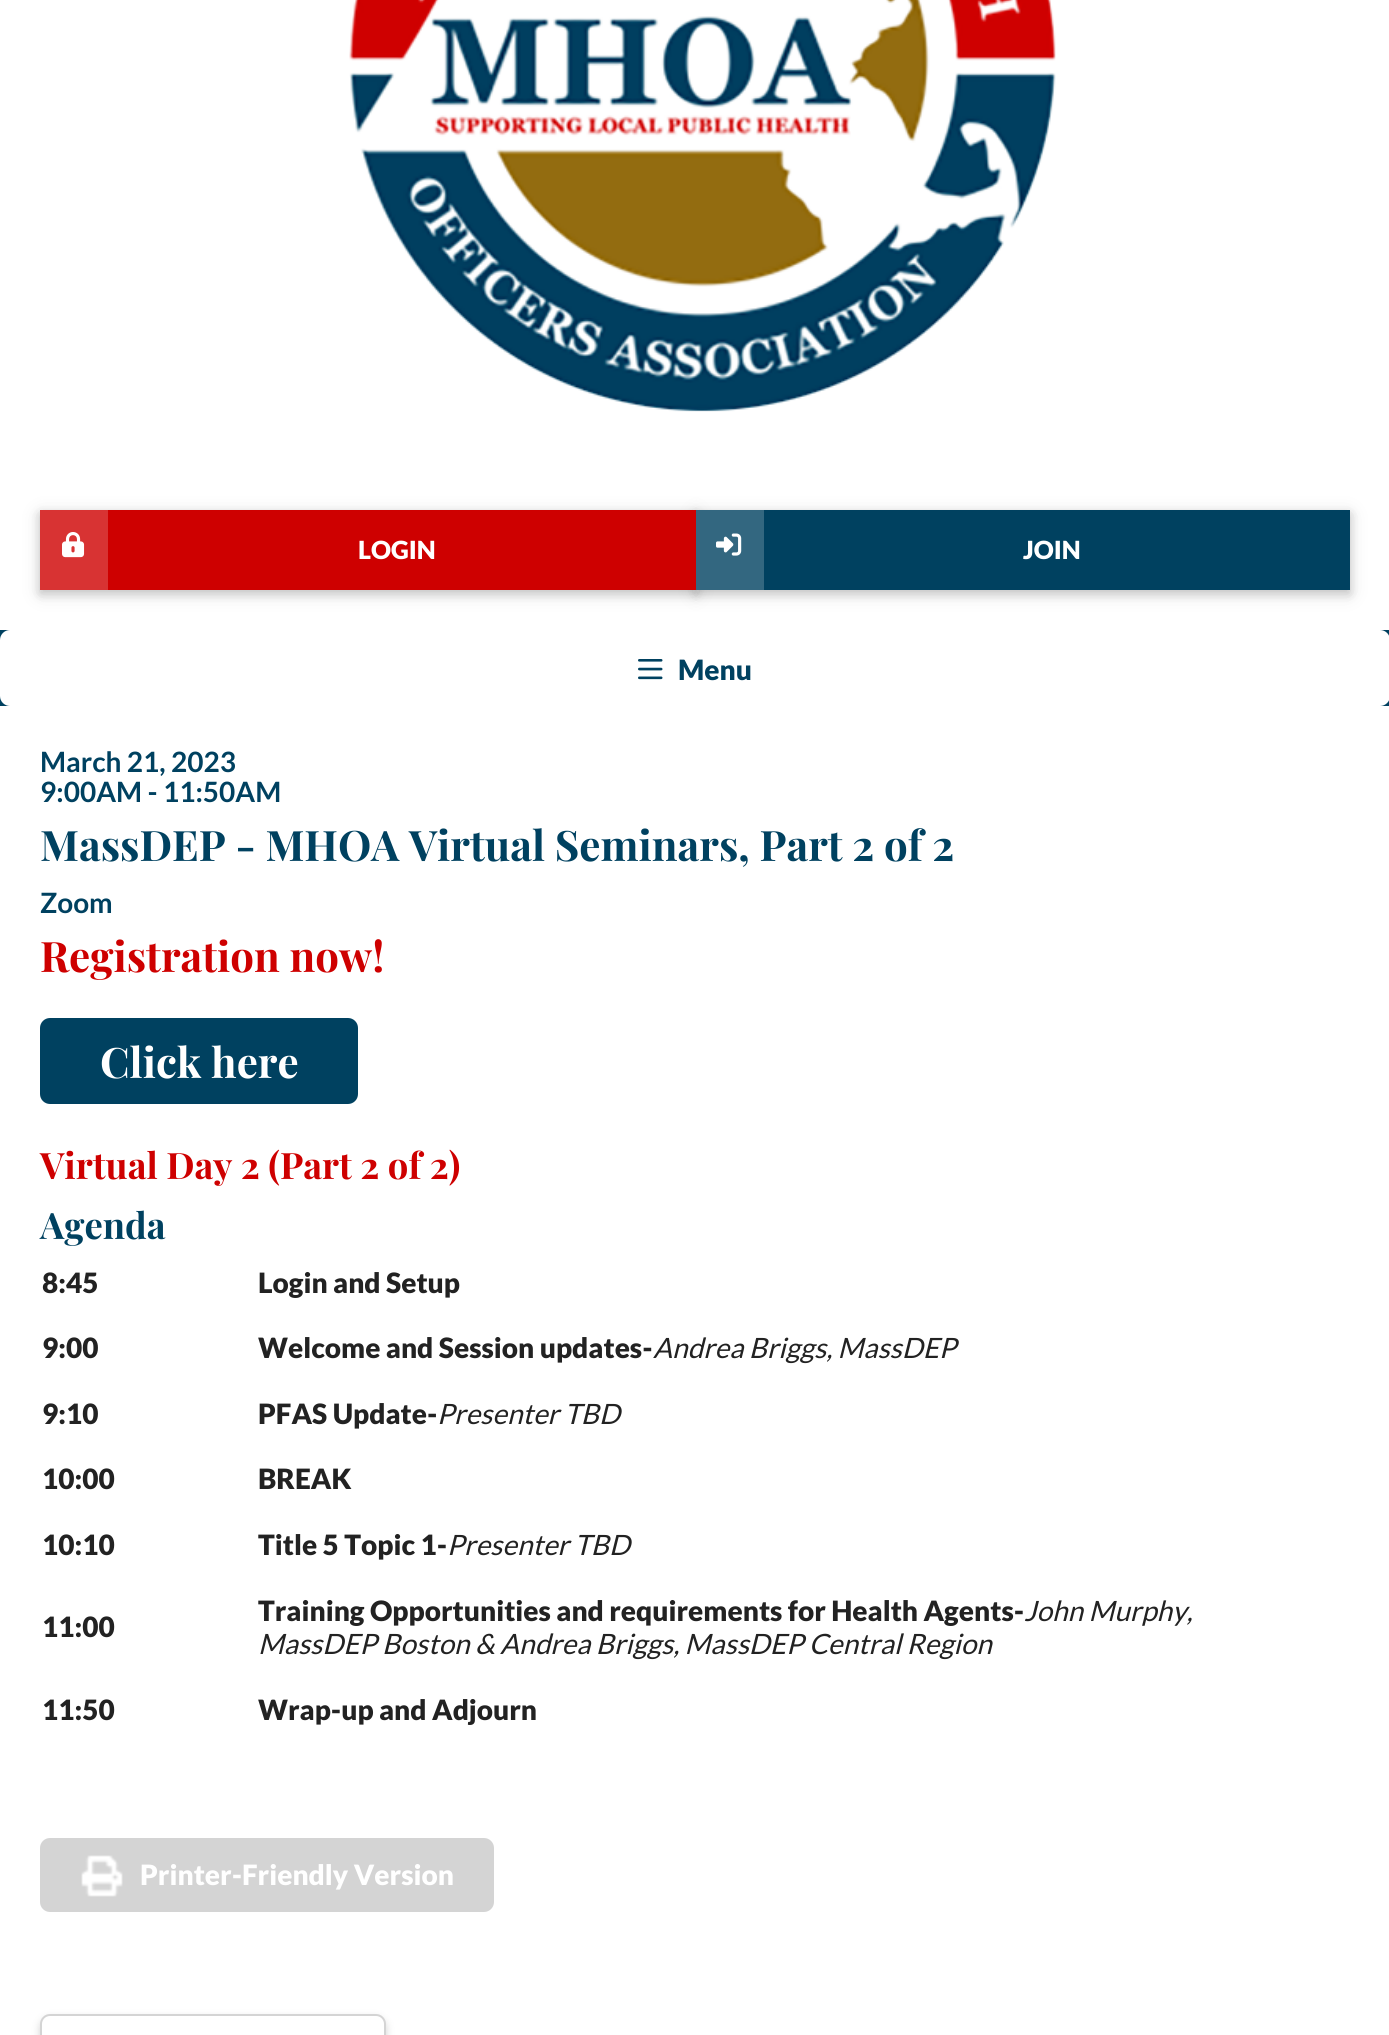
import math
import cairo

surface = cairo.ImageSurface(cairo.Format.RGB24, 1389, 2035)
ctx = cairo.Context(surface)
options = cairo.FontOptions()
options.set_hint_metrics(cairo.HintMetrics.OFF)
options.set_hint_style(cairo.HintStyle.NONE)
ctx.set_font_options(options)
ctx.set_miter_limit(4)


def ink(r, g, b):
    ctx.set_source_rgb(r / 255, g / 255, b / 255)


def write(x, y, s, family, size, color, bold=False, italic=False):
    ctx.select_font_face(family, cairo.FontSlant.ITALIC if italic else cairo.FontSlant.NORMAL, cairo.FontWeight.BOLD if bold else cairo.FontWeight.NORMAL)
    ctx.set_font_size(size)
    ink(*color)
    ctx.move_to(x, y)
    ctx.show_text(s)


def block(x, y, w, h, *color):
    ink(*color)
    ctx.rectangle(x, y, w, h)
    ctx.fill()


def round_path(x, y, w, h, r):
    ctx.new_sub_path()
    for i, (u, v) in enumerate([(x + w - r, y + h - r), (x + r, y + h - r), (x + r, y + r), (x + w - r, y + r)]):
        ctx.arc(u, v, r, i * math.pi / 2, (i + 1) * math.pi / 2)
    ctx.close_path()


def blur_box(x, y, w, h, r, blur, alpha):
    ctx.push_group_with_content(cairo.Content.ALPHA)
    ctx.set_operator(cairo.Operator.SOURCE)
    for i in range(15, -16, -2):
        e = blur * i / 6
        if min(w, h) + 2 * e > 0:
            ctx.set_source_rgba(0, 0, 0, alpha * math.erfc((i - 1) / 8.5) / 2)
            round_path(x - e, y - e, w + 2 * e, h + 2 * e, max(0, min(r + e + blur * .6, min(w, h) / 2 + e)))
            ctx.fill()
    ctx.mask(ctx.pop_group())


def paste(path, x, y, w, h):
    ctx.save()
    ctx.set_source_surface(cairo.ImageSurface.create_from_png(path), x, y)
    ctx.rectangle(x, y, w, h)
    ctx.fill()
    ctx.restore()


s1 = dict(family="Lato Black", size=25, color=(255, 255, 255))
s2 = dict(family="Lato Black", size=28, color=(0, 65, 96))
s3 = dict(family="Lato", size=28, color=(0, 65, 96), bold=True)
s4 = dict(family="Playfair Display", size=42, color=(0, 65, 96), bold=True)
s5 = dict(family="Playfair Display", size=42, color=(206, 0, 0), bold=True)
s6 = dict(family="Playfair Display", size=42, color=(255, 255, 255), bold=True)
s7 = dict(family="Playfair Display", size=36.4, color=(206, 0, 0), bold=True)
s8 = dict(family="Playfair Display", size=36.4, color=(0, 65, 96), bold=True)
s9 = dict(family="Lato Black", size=28, color=(34, 34, 34))
s10 = dict(family="Lato", size=28, color=(34, 34, 34), italic=True)
s11 = dict(family="Lato Black", size=28, color=(255, 255, 255))

ink(0, 65, 96)
ctx.paint()
block(0, 0, 1389, 630, 255, 255, 255)
paste("pic1.png", 349, 0, 707, 412)
ink(0, 0, 0)
blur_box(40, 514, 656, 80, 0, 10, 0.12)
blur_box(40, 514, 656, 80, 0, 5, 0.16)
blur_box(696, 514, 654, 80, 0, 10, 0.12)
blur_box(696, 514, 654, 80, 0, 5, 0.16)
block(108, 510, 588, 80, 206, 0, 0)
block(40, 510, 68, 80, 216, 51, 51)
paste("pic2.png", 62, 532, 23, 26)
write(358, 559, "LOGIN", **s1)
block(764, 510, 586, 80, 0, 65, 96)
block(696, 510, 68, 80, 51, 103, 128)
paste("pic3.png", 716, 533, 26, 23)
write(1023, 559, "JOIN", **s1)
round_path(0, 630, 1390, 76, 10)
ctx.fill()
paste("pic4.png", 638, 659, 25, 21)
write(678, 680, "Menu", **s2)
block(0, 706, 1389, 1329, 255, 255, 255)
write(40, 772, "March 21, 2023", **s3)
write(40, 802, "9:00AM - 11:50AM", **s3)
write(40, 861, "MassDEP - MHOA Virtual Seminars, Part 2 of 2", **s4)
write(40, 913, "Zoom", **s3)
write(40, 972, "Registration now!", **s5)
ink(0, 65, 96)
round_path(40, 1018, 318, 86, 10)
ctx.fill()
write(100, 1078, "Click here", **s6)
write(40, 1179, "Virtual Day 2 (Part 2 of 2)", **s7)
write(40, 1239, "Agenda", **s8)
write(42, 1293, "8:45", **s9)
write(258, 1293, "Login and Setup", **s9)
write(42, 1358, "9:00", **s9)
write(258, 1358, "Welcome and Session updates-", **s9)
write(653, 1358, "Andrea Briggs, MassDEP", **s10)
write(42, 1424, "9:10", **s9)
write(258, 1424, "PFAS Update-", **s9)
write(437, 1424, "Presenter TBD", **s10)
write(42, 1489, "10:00", **s9)
write(258, 1489, "BREAK", **s9)
write(42, 1555, "10:10", **s9)
write(258, 1555, "Title 5 Topic 1-", **s9)
write(447, 1555, "Presenter TBD", **s10)
write(42, 1637, "11:00", **s9)
write(258, 1621, "Training Opportunities and requirements for Health Agents-", **s9)
write(1024, 1621, "John Murphy,", **s10)
write(258, 1654, "MassDEP Boston & Andrea Briggs, MassDEP Central Region", **s10)
write(42, 1720, "11:50", **s9)
write(258, 1720, "Wrap-up and Adjourn", **s9)
ink(212, 212, 212)
round_path(40, 1838, 454, 74, 10)
ctx.fill()
paste("pic5.png", 81, 1855, 42, 42)
write(140, 1885, "Printer-Friendly Version", **s11)
ink(212, 212, 212)
blur_box(40, 2018, 346, 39, 10, 4, 1)
ink(255, 255, 255)
round_path(41, 2015, 344, 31, 9)
ctx.fill_preserve()
ink(212, 212, 212)
ctx.stroke()
surface.write_to_png("screenshot.png")
